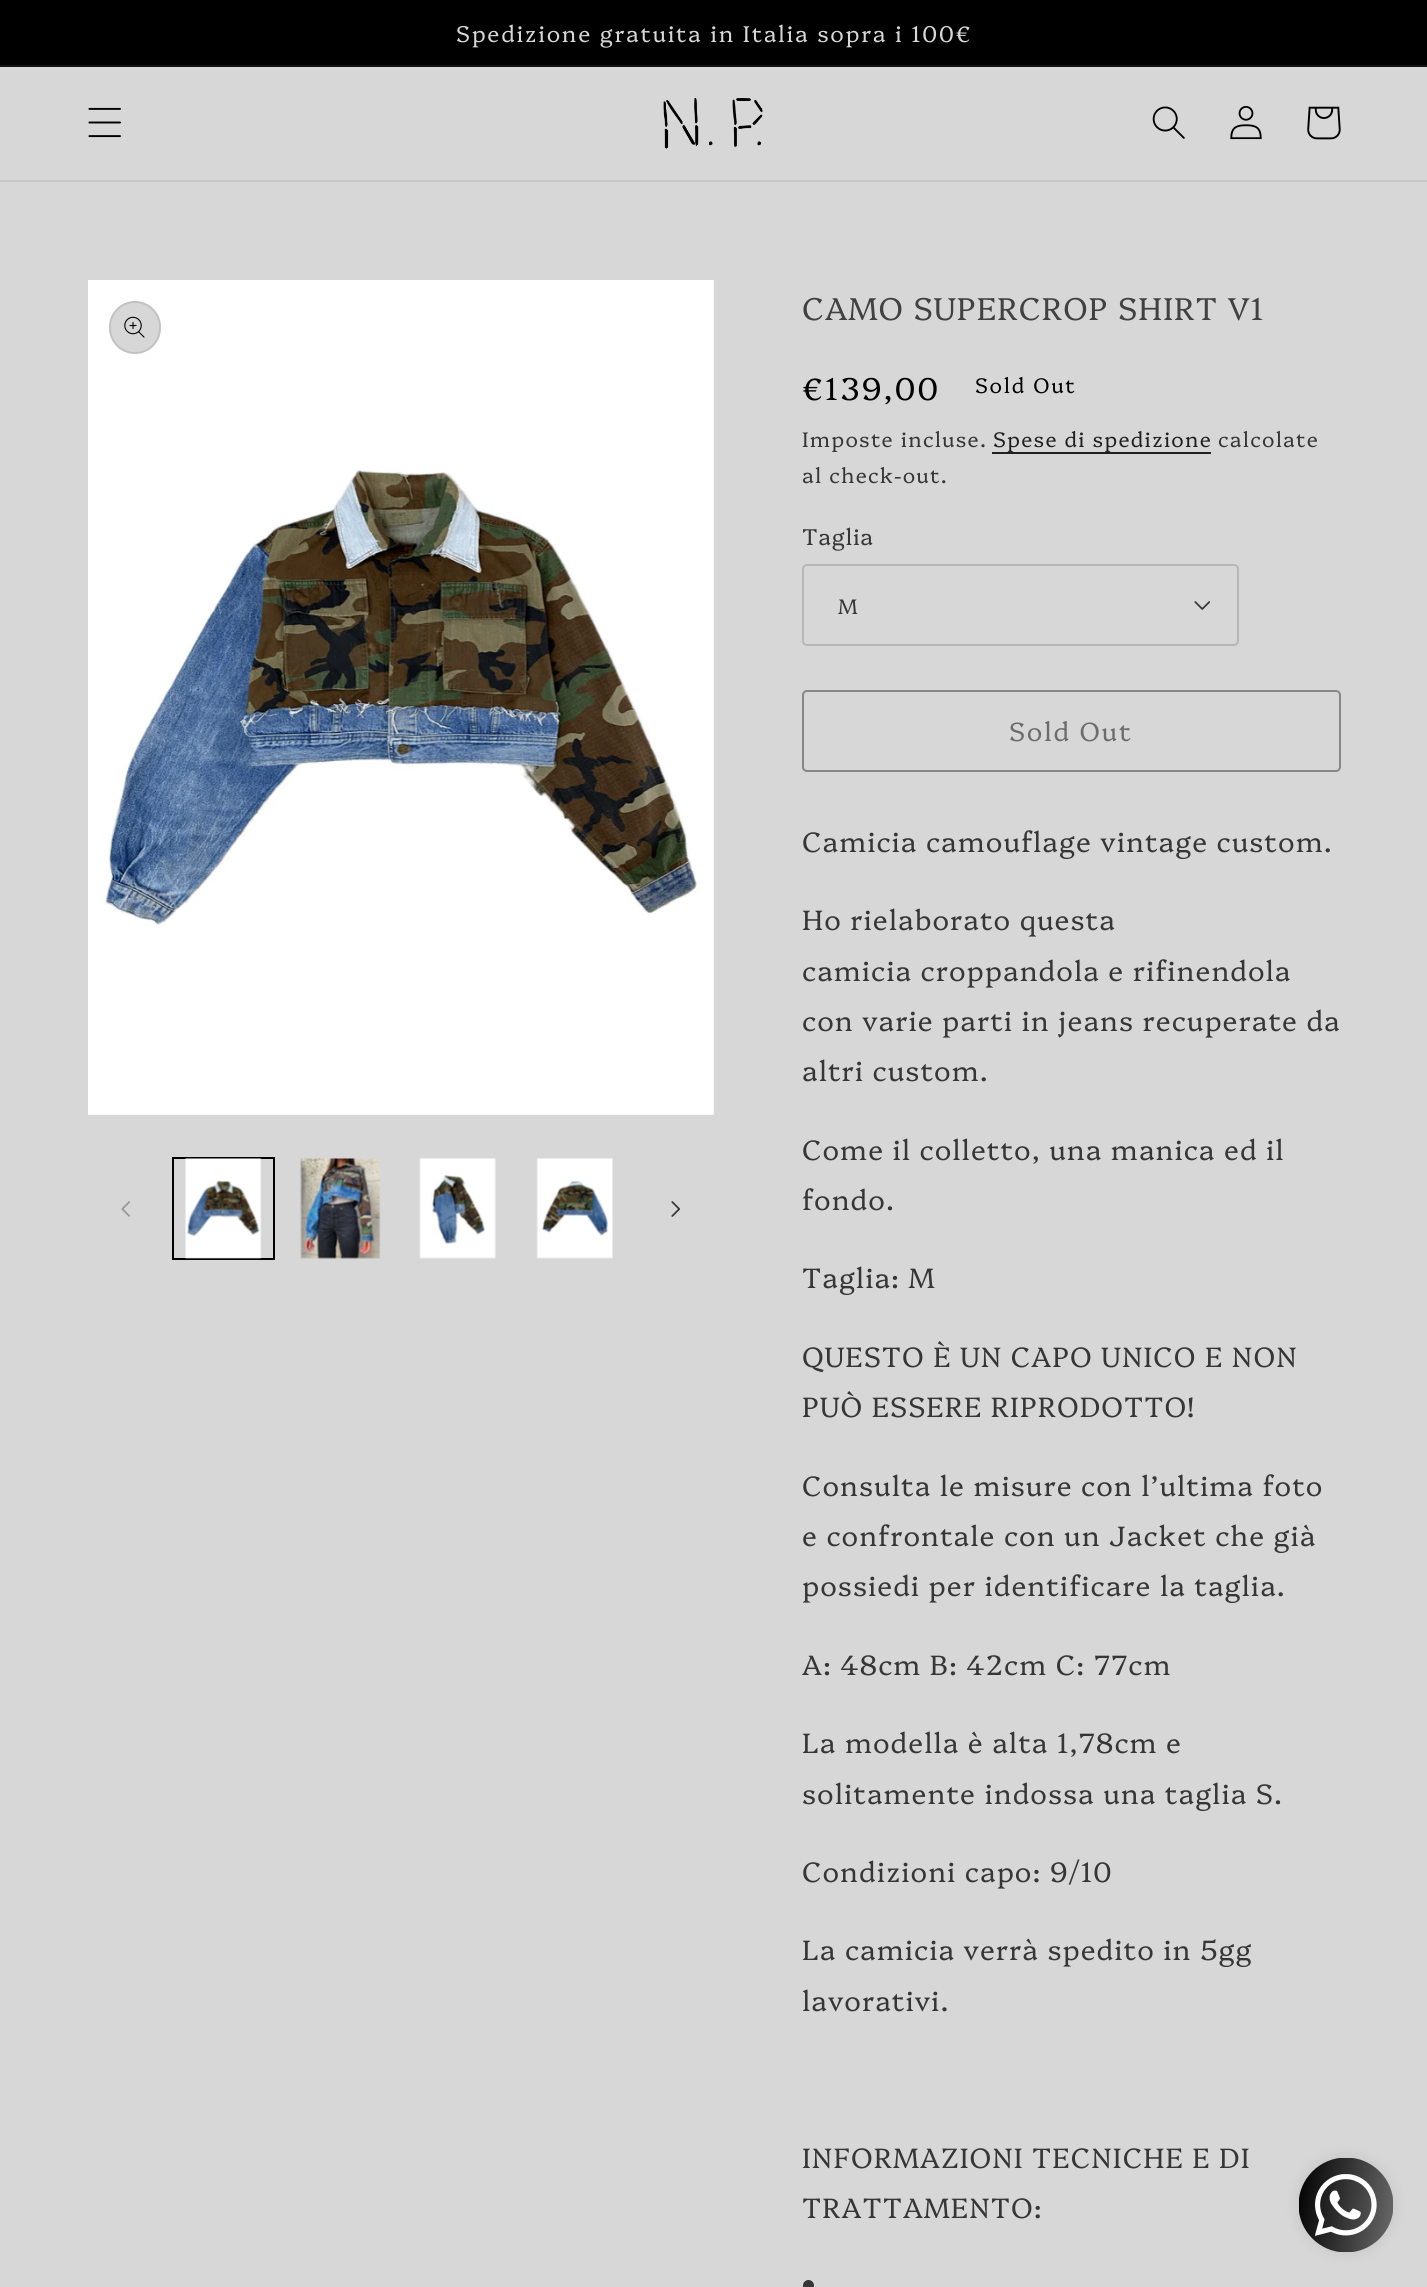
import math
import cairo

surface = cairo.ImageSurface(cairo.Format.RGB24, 1427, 2287)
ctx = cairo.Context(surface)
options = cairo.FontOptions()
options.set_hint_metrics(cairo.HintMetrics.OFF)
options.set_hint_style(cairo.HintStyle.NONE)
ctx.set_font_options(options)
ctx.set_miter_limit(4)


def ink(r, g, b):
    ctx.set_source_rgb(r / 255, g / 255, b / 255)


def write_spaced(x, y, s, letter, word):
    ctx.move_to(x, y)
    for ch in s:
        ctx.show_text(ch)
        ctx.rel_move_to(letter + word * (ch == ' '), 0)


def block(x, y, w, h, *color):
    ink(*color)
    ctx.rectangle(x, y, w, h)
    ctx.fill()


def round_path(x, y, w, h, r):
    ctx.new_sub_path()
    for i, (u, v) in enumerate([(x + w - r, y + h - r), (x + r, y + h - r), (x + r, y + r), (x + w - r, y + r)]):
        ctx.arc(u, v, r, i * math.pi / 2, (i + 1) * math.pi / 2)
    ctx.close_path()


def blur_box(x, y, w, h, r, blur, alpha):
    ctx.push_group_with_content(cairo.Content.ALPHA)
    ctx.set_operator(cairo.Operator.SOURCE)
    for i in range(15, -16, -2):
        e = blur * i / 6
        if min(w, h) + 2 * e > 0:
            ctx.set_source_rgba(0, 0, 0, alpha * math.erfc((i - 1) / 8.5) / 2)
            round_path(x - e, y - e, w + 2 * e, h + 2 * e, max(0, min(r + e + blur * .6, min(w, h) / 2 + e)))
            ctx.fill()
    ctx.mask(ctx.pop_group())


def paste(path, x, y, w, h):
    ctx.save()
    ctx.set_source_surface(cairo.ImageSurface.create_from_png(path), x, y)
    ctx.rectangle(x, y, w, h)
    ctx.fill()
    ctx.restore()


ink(215, 215, 215)
ctx.paint()
block(0, 0, 1427, 65, 0, 0, 0)
block(0, 65, 1427, 2, 17, 17, 17)
ctx.select_font_face("Platypi Light")
ctx.set_font_size(22.75)
ink(215, 215, 215)
write_spaced(456, 42, "Spedizione gratuita in Italia sopra i 100€", 1.75, 0)
block(0, 180, 1427, 2, 198, 198, 198)
paste("pic1.png", 88, 107, 33, 31)
paste("pic2.png", 663, 98, 100, 51)
paste("pic3.png", 1152, 106, 33, 33)
paste("pic4.png", 1230, 105, 32, 35)
paste("pic5.png", 1307, 106, 34, 34)
paste("pic6.png", 88, 280, 626, 835)
ink(215, 215, 215)
round_path(109, 301, 52, 53, 26)
ctx.fill()
round_path(110, 302, 50, 51, 25)
ctx.set_source_rgba(0, 0, 0, 0.1)
ctx.stroke()
paste("pic7.png", 124, 316, 21, 22)
paste("pic8.png", 121, 1201, 9, 16)
ctx.rectangle(173, 1158, 101, 101)
ink(0, 0, 0)
ctx.stroke()
paste("pic9.png", 185, 1158, 77, 101)
paste("pic10.png", 300, 1158, 81, 101)
paste("pic11.png", 419, 1158, 77, 101)
paste("pic12.png", 536, 1158, 77, 101)
paste("pic13.png", 671, 1201, 9, 16)
ctx.set_font_size(31.5)
ink(65, 65, 65)
write_spaced(802, 320, "CAMO SUPERCROP SHIRT V1", 1.05, 0)
ink(0, 0, 0)
write_spaced(802, 400, "€139,00", 2.25, 0)
ctx.set_font_size(21)
write_spaced(975, 393, "Sold Out", 1.75, 0)
ink(54, 54, 54)
write_spaced(802, 447, "Imposte incluse.", 1.25, 0)
ink(32, 32, 32)
write_spaced(993, 447, "Spese di spedizione", 1.25, 0)
block(992, 452, 219, 2, 32, 32, 32)
ink(54, 54, 54)
write_spaced(1218, 447, "calcolate", 1.25, 0)
write_spaced(802, 483, "al check-out.", 1.25, 0)
ctx.set_font_size(22.75)
write_spaced(802, 545, "Taglia", 0.75, 0)
paste("pic14.png", 1194, 601, 16, 9)
round_path(803, 565, 435, 80, 4)
ctx.set_source_rgba(0, 0, 0, 0.15)
ctx.stroke()
ctx.set_font_size(21)
ink(54, 54, 54)
write_spaced(838, 614, "M", 0.75, 0)
round_path(803, 691, 537, 80, 4)
ink(135, 135, 135)
ctx.stroke()
ctx.set_font_size(26.25)
ink(108, 108, 108)
write_spaced(1009, 741, "Sold Out", 1.75, 0)
ctx.set_font_size(28)
ink(54, 54, 54)
write_spaced(802, 852, "Camicia camouflage vintage custom.", 1.05, 0)
write_spaced(802, 930, "Ho rielaborato questa", 1.05, 0)
write_spaced(802, 981, "camicia croppandola e rifinendola", 1.05, 0)
write_spaced(802, 1031, "con varie parti in jeans recuperate da", 1.05, 0)
write_spaced(802, 1081, "altri custom.", 1.05, 0)
write_spaced(802, 1160, "Come il colletto, una manica ed il", 1.05, 0)
write_spaced(802, 1210, "fondo.", 1.05, 0)
write_spaced(802, 1288, "Taglia: M", 1.05, 0)
write_spaced(802, 1367, "QUESTO È UN CAPO UNICO E NON", 1.05, 0)
write_spaced(802, 1417, "PUÒ ESSERE RIPRODOTTO!", 1.05, 0)
write_spaced(802, 1496, "Consulta le misure con l’ultima foto", 1.05, 0)
write_spaced(802, 1546, "e confrontale con un Jacket che già", 1.05, 0)
write_spaced(802, 1596, "possiedi per identificare la taglia.", 1.05, 0)
write_spaced(802, 1675, "A: 48cm B: 42cm C: 77cm", 1.05, 0)
write_spaced(802, 1753, "La modella è alta 1,78cm e", 1.05, 0)
write_spaced(802, 1804, "solitamente indossa una taglia S.", 1.05, 0)
write_spaced(802, 1882, "Condizioni capo: 9/10", 1.05, 0)
write_spaced(802, 1960, "La camicia verrà spedito in 5gg", 1.05, 0)
write_spaced(802, 2011, "lavorativi.", 1.05, 0)
write_spaced(802, 2168, "INFORMAZIONI TECNICHE E DI", 1.05, 0)
write_spaced(802, 2218, "TRATTAMENTO:", 1.05, 0)
ctx.new_path()
ctx.arc(808.5, 2285.5, 5.5, 0, 2 * math.pi)
ctx.fill()
ink(194, 194, 194)
blur_box(1299, 2158, 94, 94, 47, 7, 1)
paste("pic15.png", 1299, 2158, 94, 94)
surface.write_to_png("screenshot.png")
